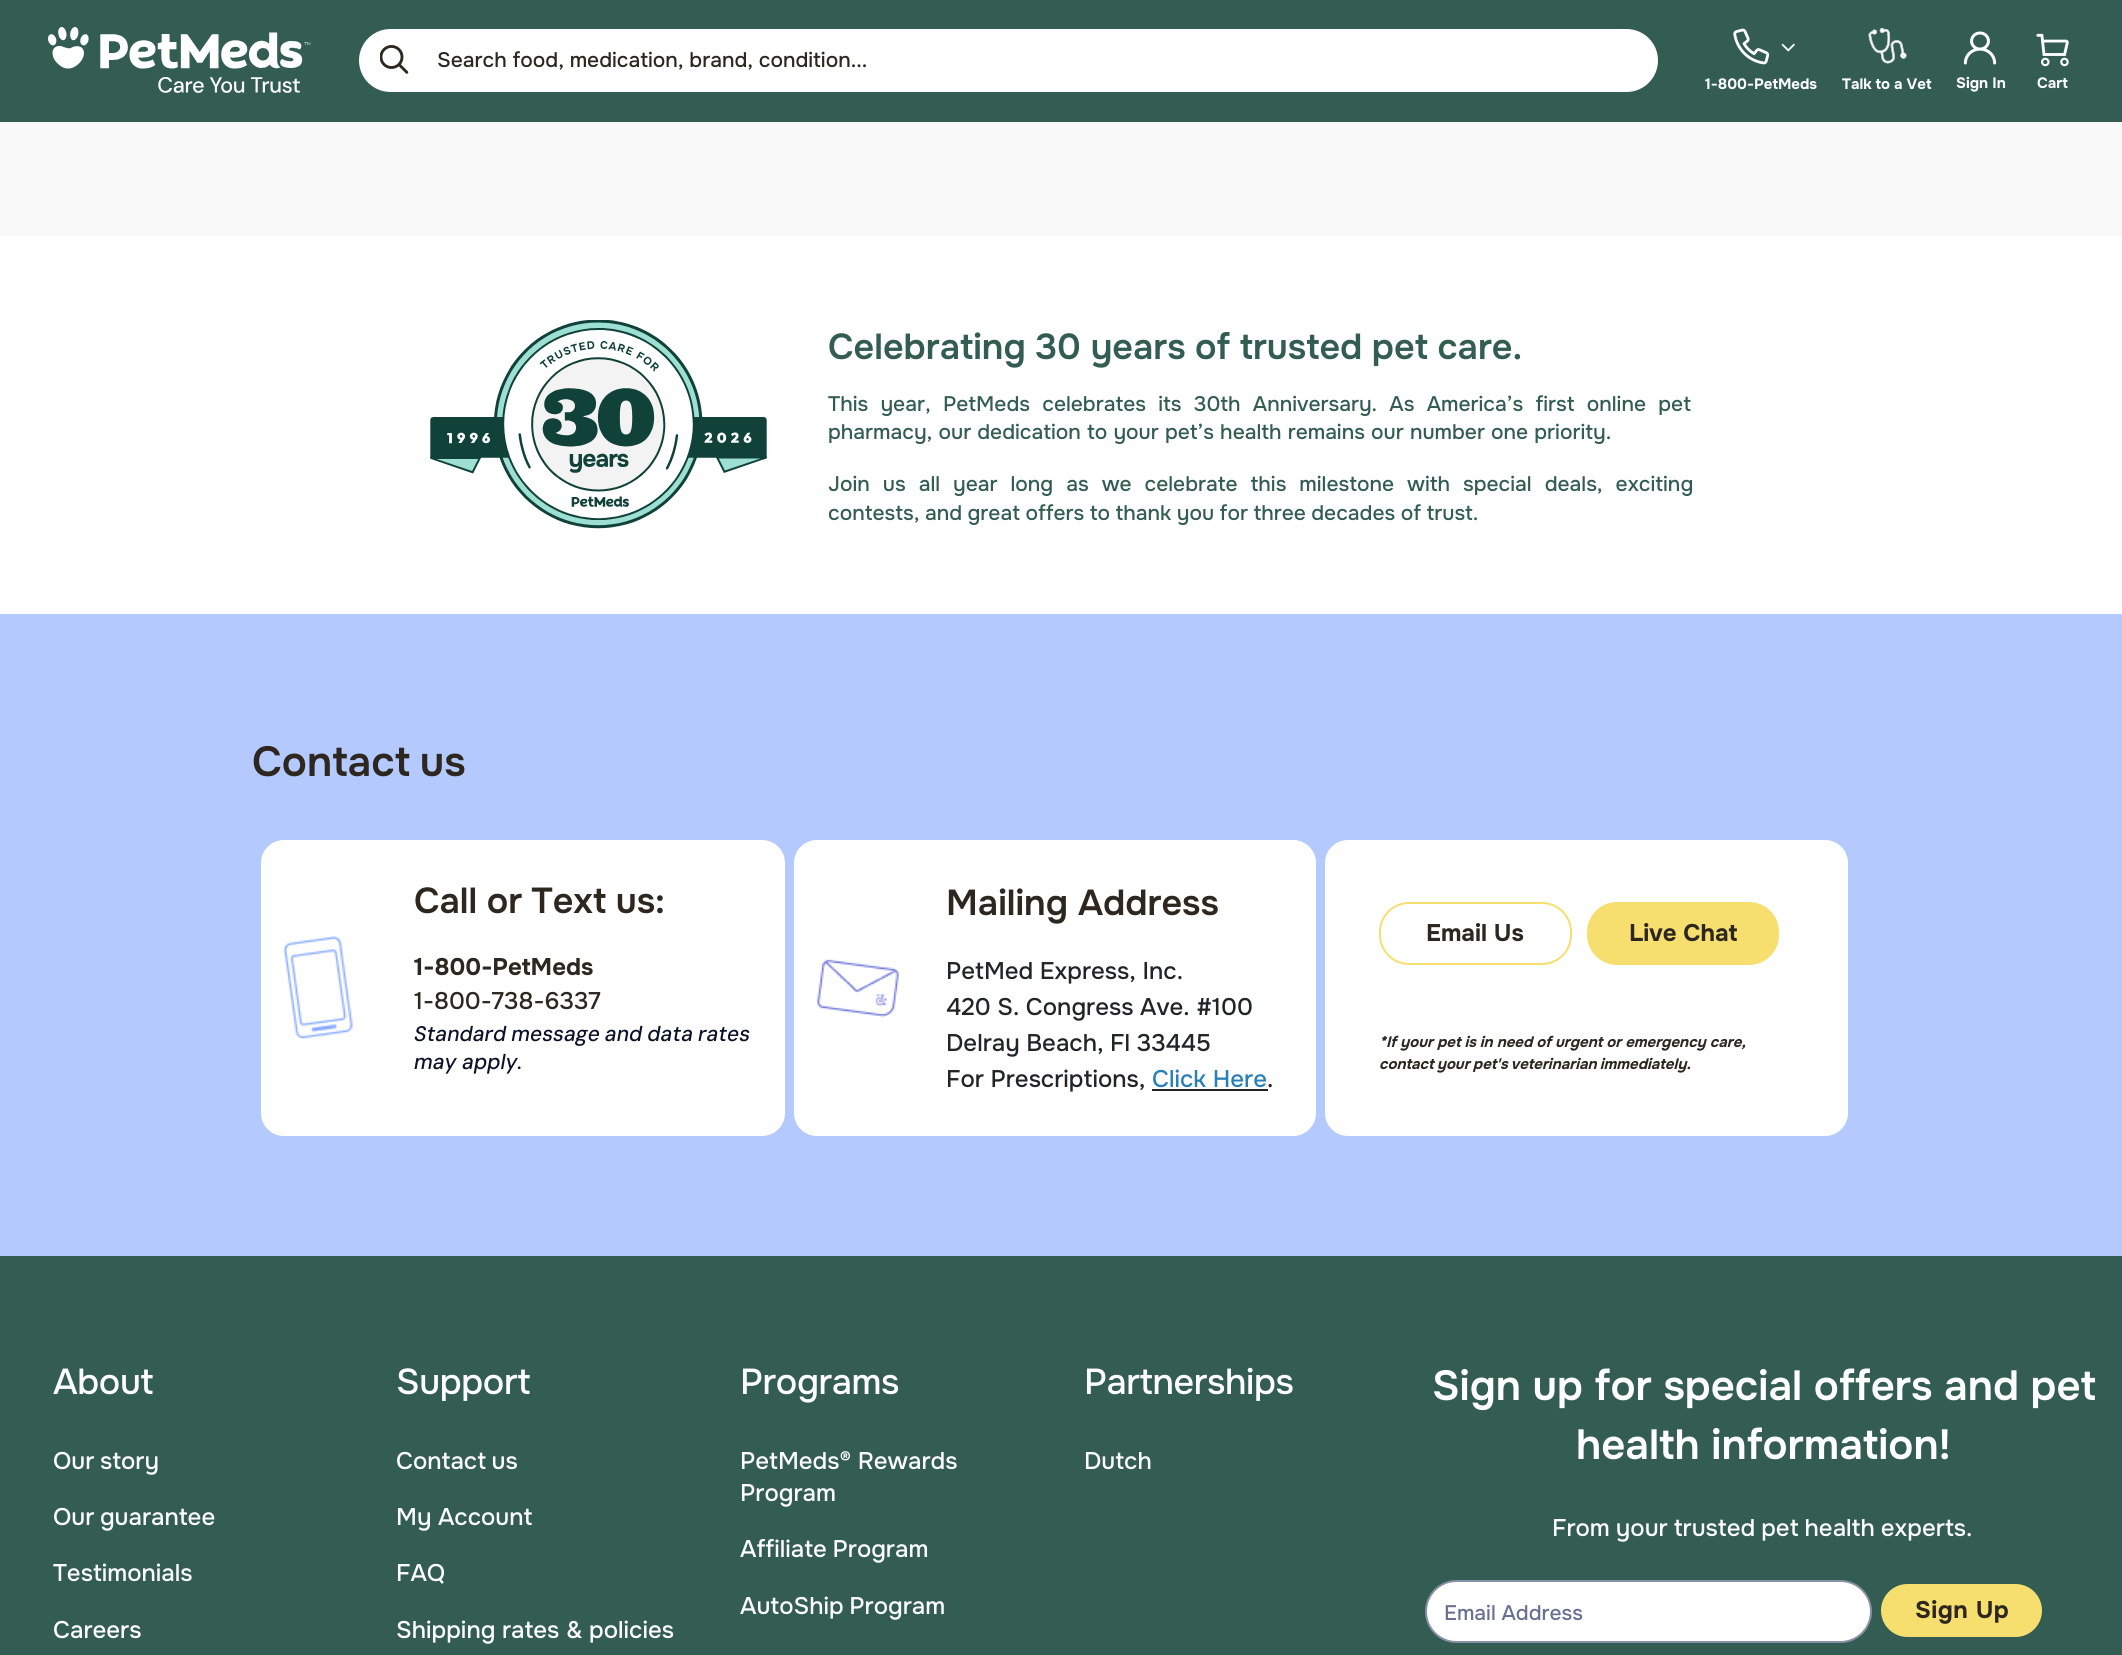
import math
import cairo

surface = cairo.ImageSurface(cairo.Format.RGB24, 2122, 1655)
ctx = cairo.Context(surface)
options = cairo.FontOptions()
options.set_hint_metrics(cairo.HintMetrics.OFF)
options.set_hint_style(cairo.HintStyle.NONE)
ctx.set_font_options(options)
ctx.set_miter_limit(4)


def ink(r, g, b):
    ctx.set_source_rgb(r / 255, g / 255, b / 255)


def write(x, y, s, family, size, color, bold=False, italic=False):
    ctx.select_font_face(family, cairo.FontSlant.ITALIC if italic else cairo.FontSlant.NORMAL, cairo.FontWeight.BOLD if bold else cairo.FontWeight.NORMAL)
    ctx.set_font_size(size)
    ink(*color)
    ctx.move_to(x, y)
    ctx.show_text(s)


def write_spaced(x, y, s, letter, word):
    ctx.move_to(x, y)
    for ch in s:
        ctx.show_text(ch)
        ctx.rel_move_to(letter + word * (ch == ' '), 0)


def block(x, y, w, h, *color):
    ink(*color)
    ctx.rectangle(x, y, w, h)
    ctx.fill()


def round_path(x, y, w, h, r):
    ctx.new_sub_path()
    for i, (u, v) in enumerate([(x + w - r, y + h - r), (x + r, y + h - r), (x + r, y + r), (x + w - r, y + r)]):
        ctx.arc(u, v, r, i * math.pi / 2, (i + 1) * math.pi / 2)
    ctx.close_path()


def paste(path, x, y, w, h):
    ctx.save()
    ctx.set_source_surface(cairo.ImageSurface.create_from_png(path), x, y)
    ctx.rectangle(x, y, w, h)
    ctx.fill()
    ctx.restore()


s1 = dict(family="Onest Medium", size=21, color=(45, 39, 32))
s2 = dict(family="Onest", size=15, color=(255, 255, 255), bold=True)
s3 = dict(family="Onest", size=24, color=(45, 39, 32), bold=True)
s4 = dict(family="Onest Medium", size=24, color=(45, 39, 32))
s5 = dict(family="DM Sans Medium", size=21, color=(10, 17, 40), italic=True)
s6 = dict(family="Onest SemiBold", size=36, color=(45, 39, 32))
s7 = dict(family="Onest Medium", size=24, color=(33, 37, 41))
s8 = dict(family="Onest Medium", size=24, color=(41, 128, 185))
s9 = dict(family="Onest Medium", size=24, color=(255, 255, 255))
s10 = dict(family="Onest SemiBold", size=42, color=(255, 255, 255))
s11 = dict(family="Onest Medium", size=21, color=(105, 112, 145))

ink(249, 249, 249)
ctx.paint()
block(0, 0, 2122, 122, 51, 93, 83)
paste("pic1.png", 48, 27, 263, 66)
ink(255, 255, 255)
round_path(359, 29, 1299, 63, 31.5)
ctx.fill()
paste("pic2.png", 380, 45, 29, 29)
write(437, 67, "Search food, medication, brand, condition...", **s1)
paste("pic3.png", 1733, 28, 37, 37)
paste("pic4.png", 1781, 43, 14, 9)
write(1705, 89, "1-800-PetMeds", **s2)
paste("pic5.png", 1868, 28, 39, 36)
write_spaced(1842, 89, "Talk to a Vet", 0, -0.25)
paste("pic6.png", 1963, 31, 34, 34)
write(1956, 88, "Sign In", **s2)
paste("pic7.png", 2036, 33, 33, 34)
write(2037, 88, "Cart", **s2)
block(0, 236, 2122, 378, 255, 255, 255)
paste("pic8.png", 430, 320, 337, 209)
ctx.select_font_face("Onest SemiBold")
ctx.set_font_size(36)
ink(51, 93, 83)
write_spaced(828, 359, "Celebrating 30 years of trusted pet care.", 0, -0.5)
ctx.select_font_face("Onest Medium")
ctx.set_font_size(21)
write_spaced(828, 411, "This year, PetMeds celebrates its 30th Anniversary. As America’s first online pet", 0, 6.5)
write_spaced(828, 439, "pharmacy, our dedication to your pet’s health remains our number one priority.", 0, 0.4)
write_spaced(828, 491, "Join us all year long as we celebrate this milestone with special deals, exciting", 0, 7.25)
write_spaced(828, 520, "contests, and great offers to thank you for three decades of trust.", 0, -0.25)
block(0, 614, 2122, 642, 180, 202, 255)
ctx.select_font_face("Onest SemiBold")
ctx.set_font_size(42)
ink(45, 39, 32)
write_spaced(252, 776, "Contact us", 0, -2)
ink(255, 255, 255)
round_path(261, 840, 524, 296, 23)
ctx.fill()
paste("pic9.png", 283, 936, 70, 103)
ctx.set_font_size(36)
ink(45, 39, 32)
write_spaced(414, 913, "Call or Text us:", 0, -0.5)
write(414, 975, "1-800-PetMeds", **s3)
write(414, 1009, "1-800-738-6337", **s4)
ctx.select_font_face("DM Sans Medium", cairo.FontSlant.ITALIC)
ctx.set_font_size(21)
ink(10, 17, 40)
write_spaced(414, 1041, "Standard message and data rates", 0, -0.5)
write(414, 1069, "may apply.", **s5)
ink(255, 255, 255)
round_path(794, 840, 522, 296, 23)
ctx.fill()
paste("pic10.png", 817, 959, 82, 59)
write(946, 915, "Mailing Address", **s6)
write(946, 979, "PetMed Express, Inc.", **s7)
write(946, 1015, "420 S. Congress Ave. #100", **s7)
write(946, 1051, "Delray Beach, Fl 33445", **s7)
write(946, 1087, "For Prescriptions,", **s7)
write(1152, 1087, "Click Here", **s8)
block(1152, 1089, 116, 2, 33, 37, 41)
write(1267, 1087, ".", **s7)
ink(255, 255, 255)
round_path(1325, 840, 523, 296, 23)
ctx.fill()
round_path(1380, 903, 191, 61, 29)
ink(246, 223, 110)
ctx.stroke()
write(1426, 941, "Email Us", **s3)
ink(246, 223, 110)
round_path(1588, 903, 190, 61, 29)
ctx.fill_preserve()
ctx.stroke()
write(1629, 941, "Live Chat", **s3)
ctx.select_font_face("Onest", cairo.FontSlant.ITALIC, cairo.FontWeight.BOLD)
ctx.set_font_size(15)
write_spaced(1379, 1047, "*If your pet is in need of urgent or emergency care,", 0, -0.25)
write_spaced(1379, 1069, "contact your pet's veterinarian immediately.", 0, -1)
block(0, 1256, 2122, 399, 51, 93, 83)
ctx.select_font_face("Onest Medium")
ctx.set_font_size(36)
ink(255, 255, 255)
write_spaced(53, 1394, "About", -0.4, 0)
ctx.set_font_size(24)
write_spaced(53, 1469, "Our story", 0, -1)
write_spaced(53, 1525, "Our guarantee", 0, -1)
write(53, 1581, "Testimonials", **s9)
write(53, 1638, "Careers", **s9)
ctx.set_font_size(36)
write_spaced(396, 1394, "Support", -0.4, 0)
ctx.set_font_size(24)
write_spaced(396, 1469, "Contact us", 0, -1)
write(396, 1525, "My Account", **s9)
write(396, 1581, "FAQ", **s9)
write(396, 1638, "Shipping rates & policies", **s9)
ctx.set_font_size(36)
write_spaced(740, 1394, "Programs", -0.4, 0)
write(740, 1469, "PetMeds® Rewards", **s9)
write(740, 1501, "Program", **s9)
write_spaced(740, 1557, "Affiliate Program", 0, -1)
write_spaced(740, 1614, "AutoShip Program", 0, -1)
ctx.set_font_size(36)
write_spaced(1084, 1394, "Partnerships", -0.4, 0)
write(1084, 1469, "Dutch", **s9)
write(1432, 1400, "Sign up for special offers and pet", **s10)
write(1576, 1459, "health information!", **s10)
ctx.select_font_face("Onest Medium")
ctx.set_font_size(24)
write_spaced(1552, 1536, "From your trusted pet health experts.", 0, -0.5)
round_path(1426, 1581, 445, 61, 30.5)
ctx.fill_preserve()
ink(136, 144, 165)
ctx.stroke()
write(1444, 1620, "Email Address", **s11)
ink(246, 223, 110)
round_path(1881, 1584, 161, 53, 26.5)
ctx.fill()
ctx.select_font_face("Onest", cairo.FontSlant.NORMAL, cairo.FontWeight.BOLD)
ctx.set_font_size(24)
ink(45, 39, 32)
write_spaced(1915, 1618, "Sign Up", 0.5, 0)
surface.write_to_png("screenshot.png")
